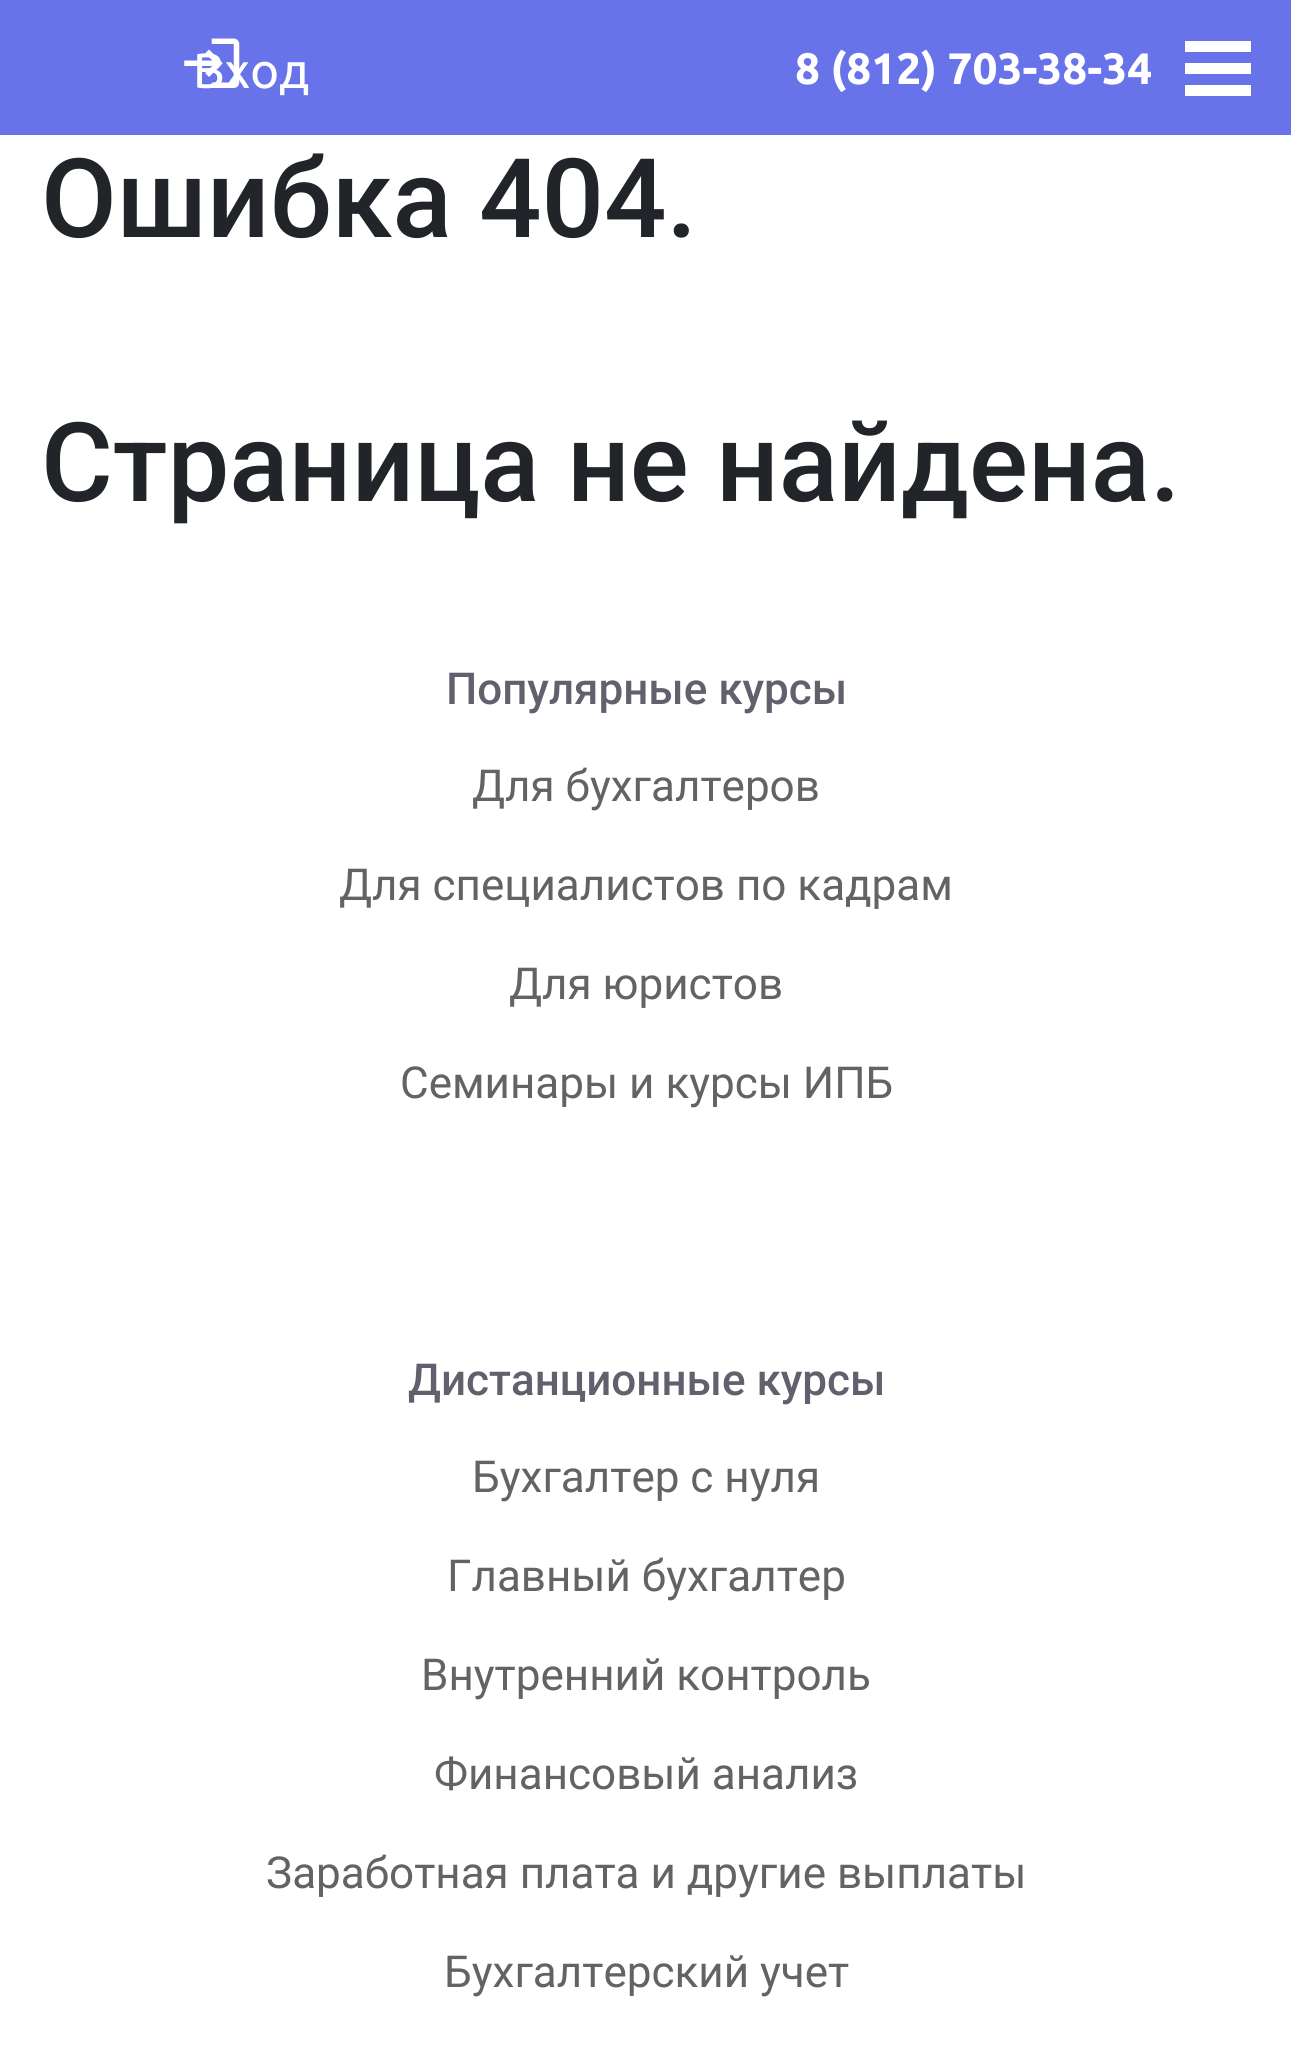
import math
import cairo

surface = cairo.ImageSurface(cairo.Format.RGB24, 1291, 2053)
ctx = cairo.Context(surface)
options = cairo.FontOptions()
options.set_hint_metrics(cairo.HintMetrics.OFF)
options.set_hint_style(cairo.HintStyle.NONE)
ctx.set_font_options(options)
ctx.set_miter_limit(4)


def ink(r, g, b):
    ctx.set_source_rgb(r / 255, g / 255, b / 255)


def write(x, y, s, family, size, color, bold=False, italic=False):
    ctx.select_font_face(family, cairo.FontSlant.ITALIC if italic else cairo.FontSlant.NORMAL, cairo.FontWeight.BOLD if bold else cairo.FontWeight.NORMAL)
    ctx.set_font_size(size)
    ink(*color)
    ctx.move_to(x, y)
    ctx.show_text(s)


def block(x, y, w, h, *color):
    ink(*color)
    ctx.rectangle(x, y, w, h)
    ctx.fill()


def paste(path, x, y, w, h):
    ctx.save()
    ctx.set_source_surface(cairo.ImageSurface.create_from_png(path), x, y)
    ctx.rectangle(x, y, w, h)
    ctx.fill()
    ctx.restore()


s1 = dict(family="Ubuntu", size=49.5, color=(255, 255, 255))
s2 = dict(family="Ubuntu", size=44, color=(255, 255, 255), bold=True)
s3 = dict(family="Roboto Medium", size=110, color=(33, 37, 41))
s4 = dict(family="Roboto Medium", size=44, color=(96, 97, 109))
s5 = dict(family="Roboto", size=44, color=(99, 99, 99))

ink(255, 255, 255)
ctx.paint()
block(0, 0, 1291, 135, 104, 115, 234)
paste("pic1.png", 184, 38, 56, 50)
write(193, 88, "Вход", **s1)
write(795, 84, "8 (812) 703-38-34", **s2)
block(1185, 63, 66, 11, 255, 255, 255)
block(1185, 41, 66, 11, 255, 255, 255)
block(1185, 85, 66, 11, 255, 255, 255)
write(41, 237, "Ошибка 404.", **s3)
write(41, 501, "Страница не найдена.", **s3)
write(446, 704, "Популярные курсы", **s4)
write(472, 801, "Для бухгалтеров", **s5)
write(339, 900, "Для специалистов по кадрам", **s5)
write(509, 999, "Для юристов", **s5)
write(400, 1098, "Семинары и курсы ИПБ", **s5)
write(408, 1395, "Дистанционные курсы", **s4)
write(472, 1492, "Бухгалтер с нуля", **s5)
write(447, 1591, "Главный бухгалтер", **s5)
write(421, 1690, "Внутренний контроль", **s5)
write(434, 1789, "Финансовый анализ", **s5)
write(266, 1888, "Заработная плата и другие выплаты", **s5)
write(444, 1987, "Бухгалтерский учет", **s5)
surface.write_to_png("screenshot.png")
